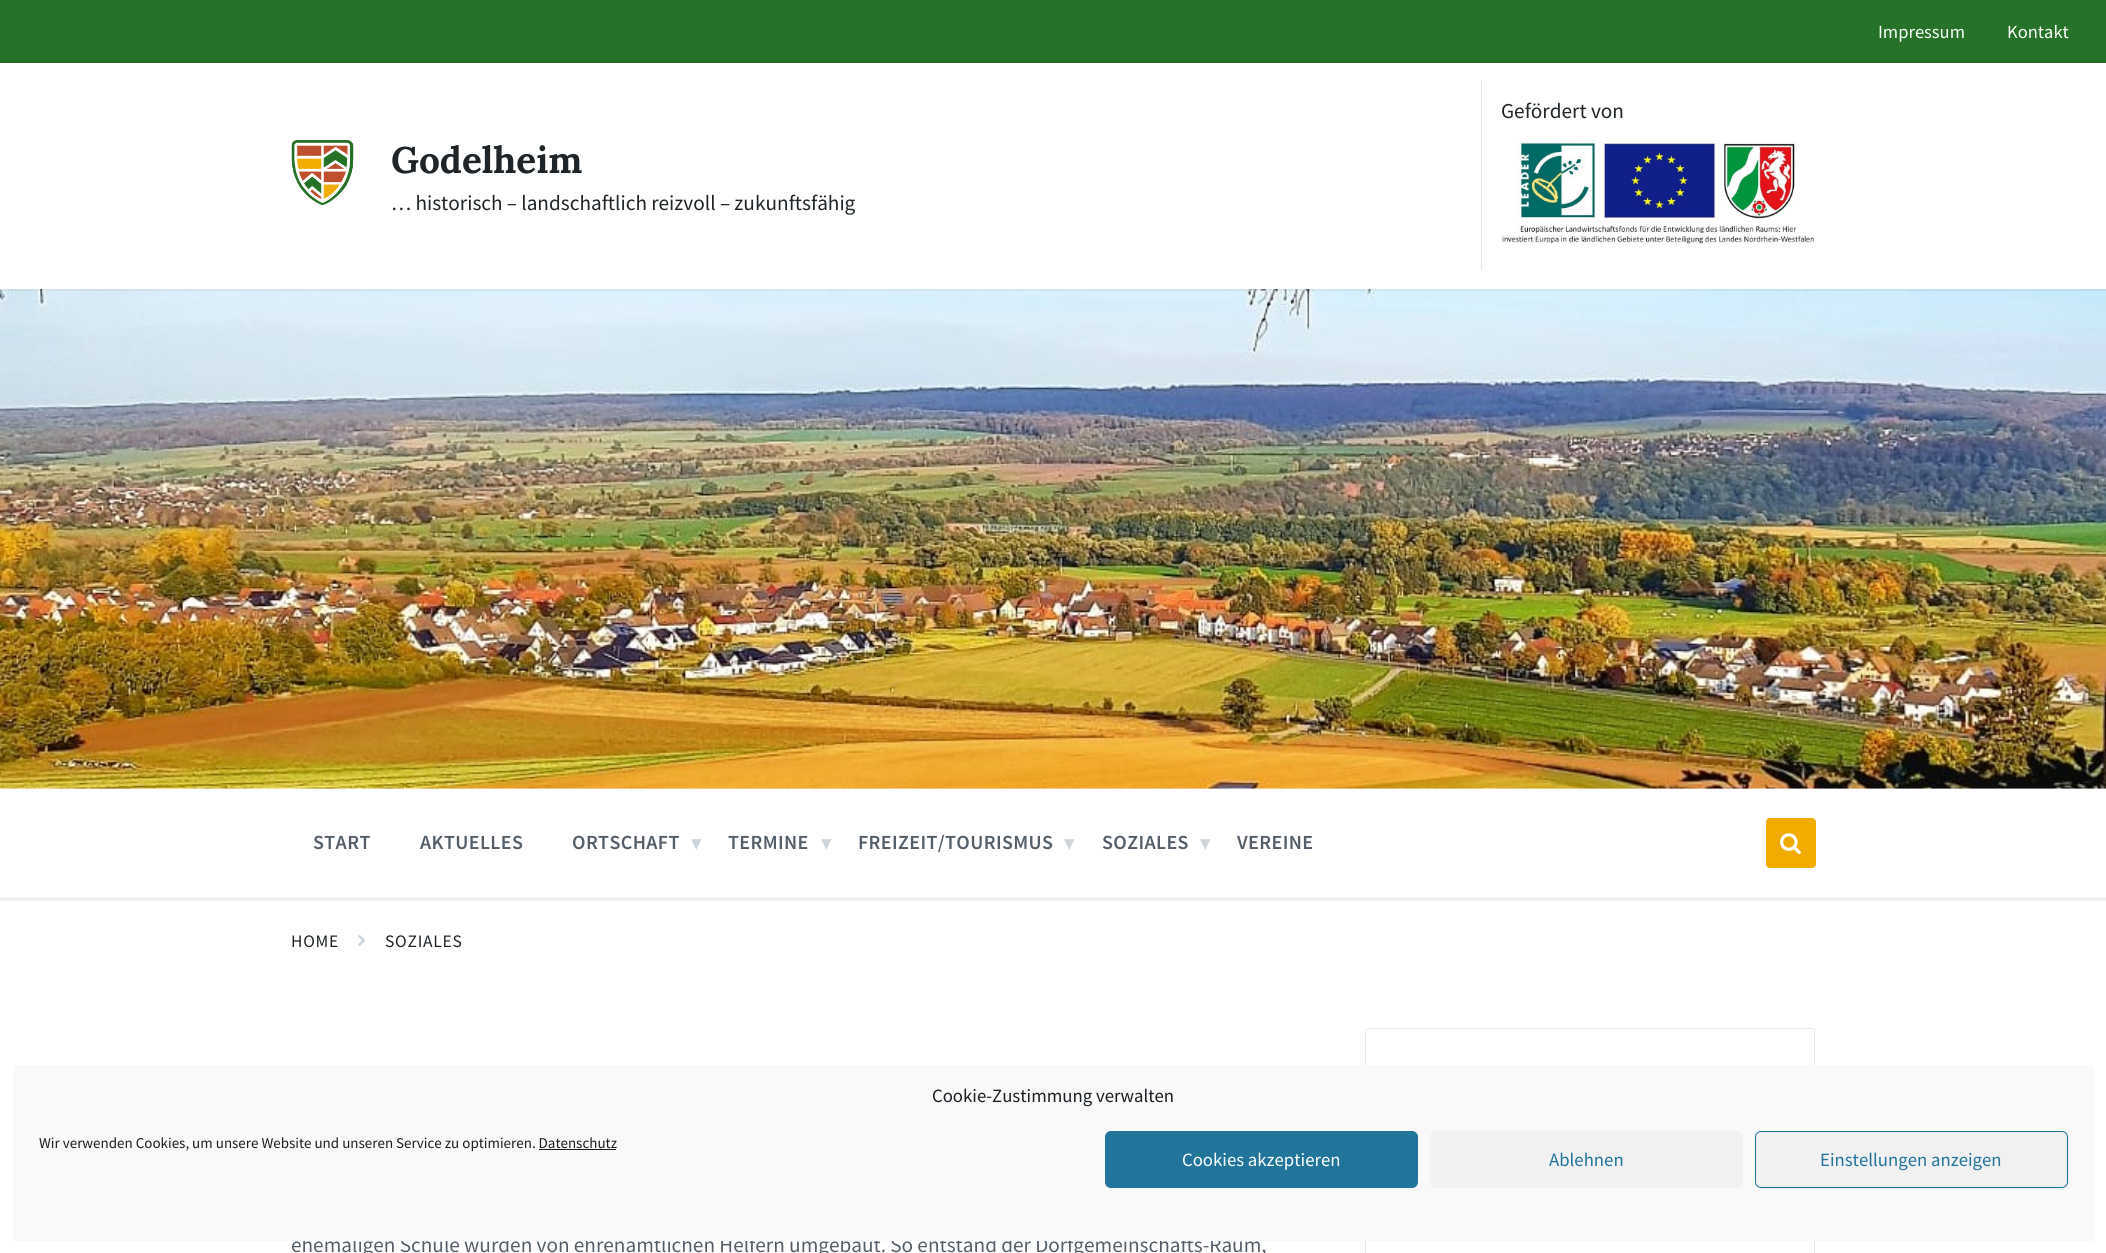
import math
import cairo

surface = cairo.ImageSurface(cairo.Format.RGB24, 2106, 1253)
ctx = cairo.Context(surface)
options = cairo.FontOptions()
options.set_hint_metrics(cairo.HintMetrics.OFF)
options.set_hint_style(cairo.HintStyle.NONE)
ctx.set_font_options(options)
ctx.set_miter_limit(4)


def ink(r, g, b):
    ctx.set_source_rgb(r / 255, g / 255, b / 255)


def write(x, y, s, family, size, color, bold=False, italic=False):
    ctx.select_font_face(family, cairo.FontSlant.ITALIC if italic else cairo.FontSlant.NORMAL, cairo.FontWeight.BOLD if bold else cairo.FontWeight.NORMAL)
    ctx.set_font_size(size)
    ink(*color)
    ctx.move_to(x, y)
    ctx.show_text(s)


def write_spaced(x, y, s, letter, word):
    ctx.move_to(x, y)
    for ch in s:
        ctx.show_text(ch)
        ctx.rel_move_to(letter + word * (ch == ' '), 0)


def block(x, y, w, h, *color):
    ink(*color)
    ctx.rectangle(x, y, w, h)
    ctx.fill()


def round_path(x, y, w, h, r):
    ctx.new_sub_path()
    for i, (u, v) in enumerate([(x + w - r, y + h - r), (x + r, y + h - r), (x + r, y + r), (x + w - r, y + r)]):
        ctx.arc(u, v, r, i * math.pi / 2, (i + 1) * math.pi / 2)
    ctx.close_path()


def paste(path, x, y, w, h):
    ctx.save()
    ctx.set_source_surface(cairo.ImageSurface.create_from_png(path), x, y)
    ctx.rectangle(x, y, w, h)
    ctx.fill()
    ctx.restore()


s1 = dict(family="Source Sans Pro", size=18.5, color=(255, 255, 255))
s2 = dict(family="Source Sans Pro", size=21.25, color=(30, 36, 39))
s3 = dict(family="Lora", size=37, color=(30, 36, 39), bold=True)
s4 = dict(family="DejaVu Sans", size=21.25, color=(206, 213, 218))
s5 = dict(family="Source Sans Pro", size=21.25, color=(84, 94, 105))
s6 = dict(family="Source Sans Pro", size=18.75, color=(25, 30, 35))
s7 = dict(family="Source Sans Pro", size=15, color=(25, 30, 35))
s8 = dict(family="Source Sans Pro", size=18.75, color=(255, 255, 255))
s9 = dict(family="Source Sans Pro", size=18.75, color=(33, 117, 155))

ink(255, 255, 255)
ctx.paint()
ctx.rectangle(-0.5, 787.5, 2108, 112)
ink(242, 242, 242)
ctx.set_line_width(3)
ctx.stroke()
block(0, 788, 2106, 1, 248, 248, 248)
block(0, 0, 2106, 63, 37, 114, 40)
write(1878, 38, "Impressum", **s1)
write(2007, 38, "Kontakt", **s1)
paste("pic3.png", 0, 289, 2106, 500)
ctx.rectangle(-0.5, 61.5, 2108, 228)
ctx.set_source_rgba(0, 0, 0, 0.05)
ctx.stroke()
block(0, 63, 2106, 226, 255, 255, 255)
block(1481, 81, 1, 189, 225, 231, 236)
write(1501, 118, "Gefördert von", **s2)
paste("pic1.png", 1501, 140, 314, 104)
paste("pic2.png", 291, 140, 63, 65)
write(391, 173, "Godelheim", **s3)
write(391, 210, "… historisch – landschaftlich reizvoll – zukunftsfähig", **s2)
block(0, 789, 1, 109, 255, 255, 255)
block(0, 898, 2106, 1, 230, 230, 230)
ctx.select_font_face("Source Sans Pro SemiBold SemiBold")
ctx.set_font_size(20)
ink(84, 94, 105)
write_spaced(313, 849, "START", 0.4, 0)
write_spaced(420, 849, "AKTUELLES", 0.4, 0)
write_spaced(572, 849, "ORTSCHAFT", 0.4, 0)
write(691, 850, "▾", **s4)
ctx.select_font_face("Source Sans Pro SemiBold SemiBold")
ctx.set_font_size(20)
ink(84, 94, 105)
write_spaced(728, 849, "TERMINE", 0.4, 0)
write(821, 850, "▾", **s4)
ctx.select_font_face("Source Sans Pro SemiBold SemiBold")
ctx.set_font_size(20)
ink(84, 94, 105)
write_spaced(858, 849, "FREIZEIT/TOURISMUS", 0.4, 0)
write(1064, 850, "▾", **s4)
ctx.select_font_face("Source Sans Pro SemiBold SemiBold")
ctx.set_font_size(20)
ink(84, 94, 105)
write_spaced(1102, 849, "SOZIALES", 0.4, 0)
write(1200, 850, "▾", **s4)
ctx.select_font_face("Source Sans Pro SemiBold SemiBold")
ctx.set_font_size(20)
ink(84, 94, 105)
write_spaced(1237, 849, "VEREINE", 0.4, 0)
ink(240, 172, 0)
round_path(1766, 818, 50, 50, 4)
ctx.fill()
paste("pic4.png", 1780, 833, 21, 22)
ctx.select_font_face("Source Sans Pro")
ctx.set_font_size(17.5)
ink(30, 36, 39)
write_spaced(291, 947, "HOME", 0.75, 0)
paste("pic5.png", 358, 935, 8, 11)
write_spaced(385, 947, "SOZIALES", 0.75, 0)
write(291, 1252, "ehemaligen Schule wurden von ehrenamtlichen Helfern umgebaut. So entstand der Dorfgemeinschafts-Raum,", **s5)
round_path(1365.5, 1028.5, 449, 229, 3.5)
ink(225, 231, 236)
ctx.set_line_width(1)
ctx.stroke()
block(13, 1065, 2081, 176, 249, 249, 249)
write(932, 1102, "Cookie-Zustimmung verwalten", **s6)
write(39, 1148, "Wir verwenden Cookies, um unsere Website und unseren Service zu optimieren. Datenschutz", **s7)
block(539, 1149, 77, 1, 25, 30, 35)
ink(33, 117, 155)
round_path(1105.5, 1131.5, 312, 56, 5.5)
ctx.fill_preserve()
ctx.stroke()
write(1182, 1166, "Cookies akzeptieren", **s8)
ink(241, 241, 241)
round_path(1430, 1131, 313, 57, 6)
ctx.fill()
write(1549, 1166, "Ablehnen", **s9)
ink(241, 241, 241)
round_path(1755.5, 1131.5, 312, 56, 5.5)
ctx.fill_preserve()
ink(33, 117, 155)
ctx.stroke()
write(1820, 1166, "Einstellungen anzeigen", **s9)
surface.write_to_png("screenshot.png")
